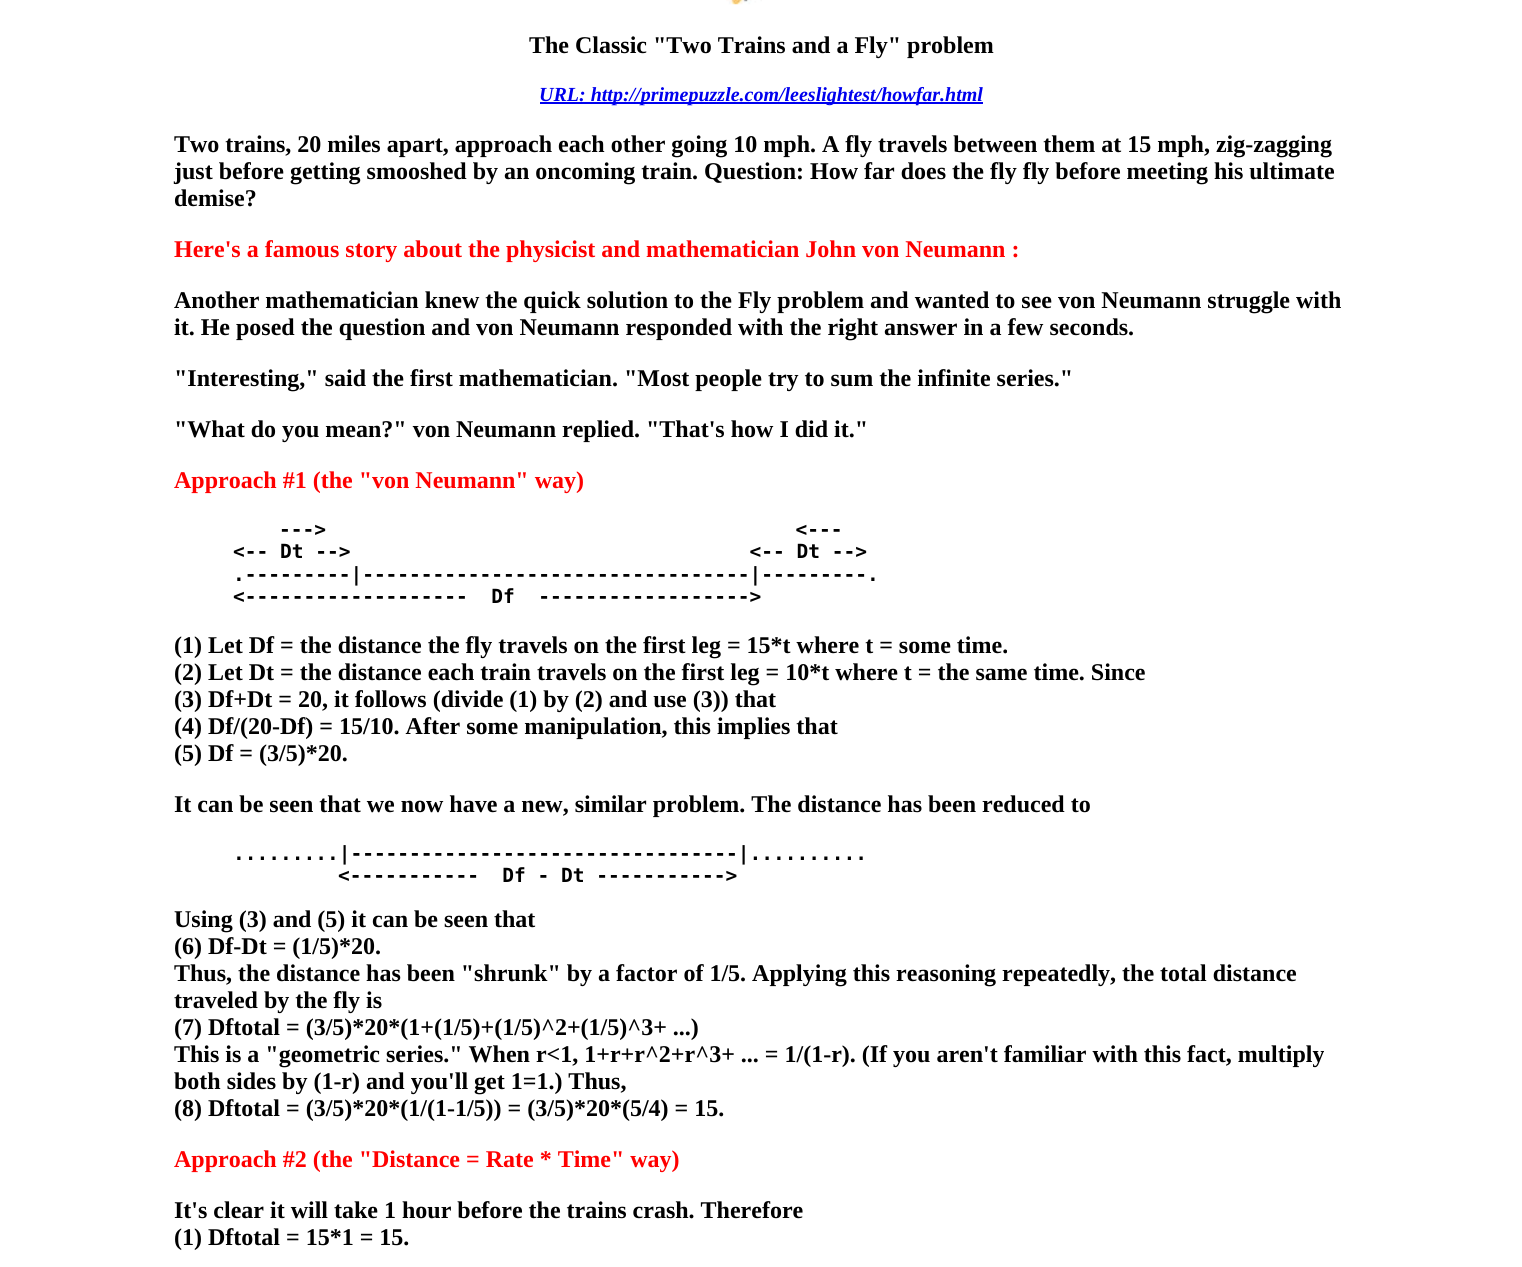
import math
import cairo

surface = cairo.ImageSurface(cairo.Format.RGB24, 1522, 1267)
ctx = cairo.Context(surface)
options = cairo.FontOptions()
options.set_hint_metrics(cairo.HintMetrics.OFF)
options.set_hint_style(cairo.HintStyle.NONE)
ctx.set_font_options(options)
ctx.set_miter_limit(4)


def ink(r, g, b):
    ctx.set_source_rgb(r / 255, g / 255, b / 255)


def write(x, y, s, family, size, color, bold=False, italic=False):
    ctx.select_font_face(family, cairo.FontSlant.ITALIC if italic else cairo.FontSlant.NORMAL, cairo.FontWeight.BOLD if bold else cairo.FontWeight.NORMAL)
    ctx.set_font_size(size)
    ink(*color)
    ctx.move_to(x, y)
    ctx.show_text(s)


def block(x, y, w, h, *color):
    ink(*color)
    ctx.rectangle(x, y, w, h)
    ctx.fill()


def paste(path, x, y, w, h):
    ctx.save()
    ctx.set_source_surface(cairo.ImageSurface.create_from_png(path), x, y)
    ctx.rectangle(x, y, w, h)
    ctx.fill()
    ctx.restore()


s1 = dict(family="Liberation Serif", size=24, color=(0, 0, 0), bold=True)
s2 = dict(family="Liberation Serif", size=20, color=(0, 0, 238), bold=True, italic=True)
s3 = dict(family="Liberation Serif", size=24, color=(255, 0, 0), bold=True)
s4 = dict(family="DejaVu Sans Mono", size=19.5, color=(0, 0, 0), bold=True)

ink(255, 255, 255)
ctx.paint()
paste("pic1.png", 726, 0, 36, 5)
write(529, 53, "The Classic \"Two Trains and a Fly\" problem", **s1)
block(540, 102, 443, 2, 0, 0, 238)
write(539, 101, "URL: http://primepuzzle.com/leeslightest/howfar.html", **s2)
write(174, 152, "Two trains, 20 miles apart, approach each other going 10 mph. A fly travels between them at 15 mph, zig-zagging", **s1)
write(174, 179, "just before getting smooshed by an oncoming train. Question: How far does the fly fly before meeting his ultimate", **s1)
write(174, 206, "demise?", **s1)
write(174, 257, "Here's a famous story about the physicist and mathematician John von Neumann :", **s3)
write(174, 308, "Another mathematician knew the quick solution to the Fly problem and wanted to see von Neumann struggle with", **s1)
write(174, 335, "it. He posed the question and von Neumann responded with the right answer in a few seconds.", **s1)
write(174, 386, "\"Interesting,\" said the first mathematician. \"Most people try to sum the infinite series.\"", **s1)
write(174, 437, "\"What do you mean?\" von Neumann replied. \"That's how I did it.\"", **s1)
write(174, 488, "Approach #1 (the \"von Neumann\" way)", **s3)
write(279, 536, "--->                                        <---", **s4)
write(233, 558, "<-- Dt -->                                  <-- Dt -->", **s4)
write(233, 581, ".---------|---------------------------------|---------.", **s4)
write(233, 603, "<-------------------  Df  ------------------>", **s4)
write(174, 653, "(1) Let Df = the distance the fly travels on the first leg = 15*t where t = some time.", **s1)
write(174, 680, "(2) Let Dt = the distance each train travels on the first leg = 10*t where t = the same time. Since", **s1)
write(174, 707, "(3) Df+Dt = 20, it follows (divide (1) by (2) and use (3)) that", **s1)
write(174, 734, "(4) Df/(20-Df) = 15/10. After some manipulation, this implies that", **s1)
write(174, 761, "(5) Df = (3/5)*20.", **s1)
write(174, 812, "It can be seen that we now have a new, similar problem. The distance has been reduced to", **s1)
write(233, 860, ".........|---------------------------------|..........", **s4)
write(338, 882, "<-----------  Df - Dt ----------->", **s4)
write(174, 927, "Using (3) and (5) it can be seen that", **s1)
write(174, 954, "(6) Df-Dt = (1/5)*20.", **s1)
write(174, 981, "Thus, the distance has been \"shrunk\" by a factor of 1/5. Applying this reasoning repeatedly, the total distance", **s1)
write(174, 1008, "traveled by the fly is", **s1)
write(174, 1035, "(7) Dftotal = (3/5)*20*(1+(1/5)+(1/5)^2+(1/5)^3+ ...)", **s1)
write(174, 1062, "This is a \"geometric series.\" When r<1, 1+r+r^2+r^3+ ... = 1/(1-r). (If you aren't familiar with this fact, multiply", **s1)
write(174, 1089, "both sides by (1-r) and you'll get 1=1.) Thus,", **s1)
write(174, 1116, "(8) Dftotal = (3/5)*20*(1/(1-1/5)) = (3/5)*20*(5/4) = 15.", **s1)
write(174, 1167, "Approach #2 (the \"Distance = Rate * Time\" way)", **s3)
write(174, 1218, "It's clear it will take 1 hour before the trains crash. Therefore", **s1)
write(174, 1245, "(1) Dftotal = 15*1 = 15.", **s1)
surface.write_to_png("screenshot.png")
